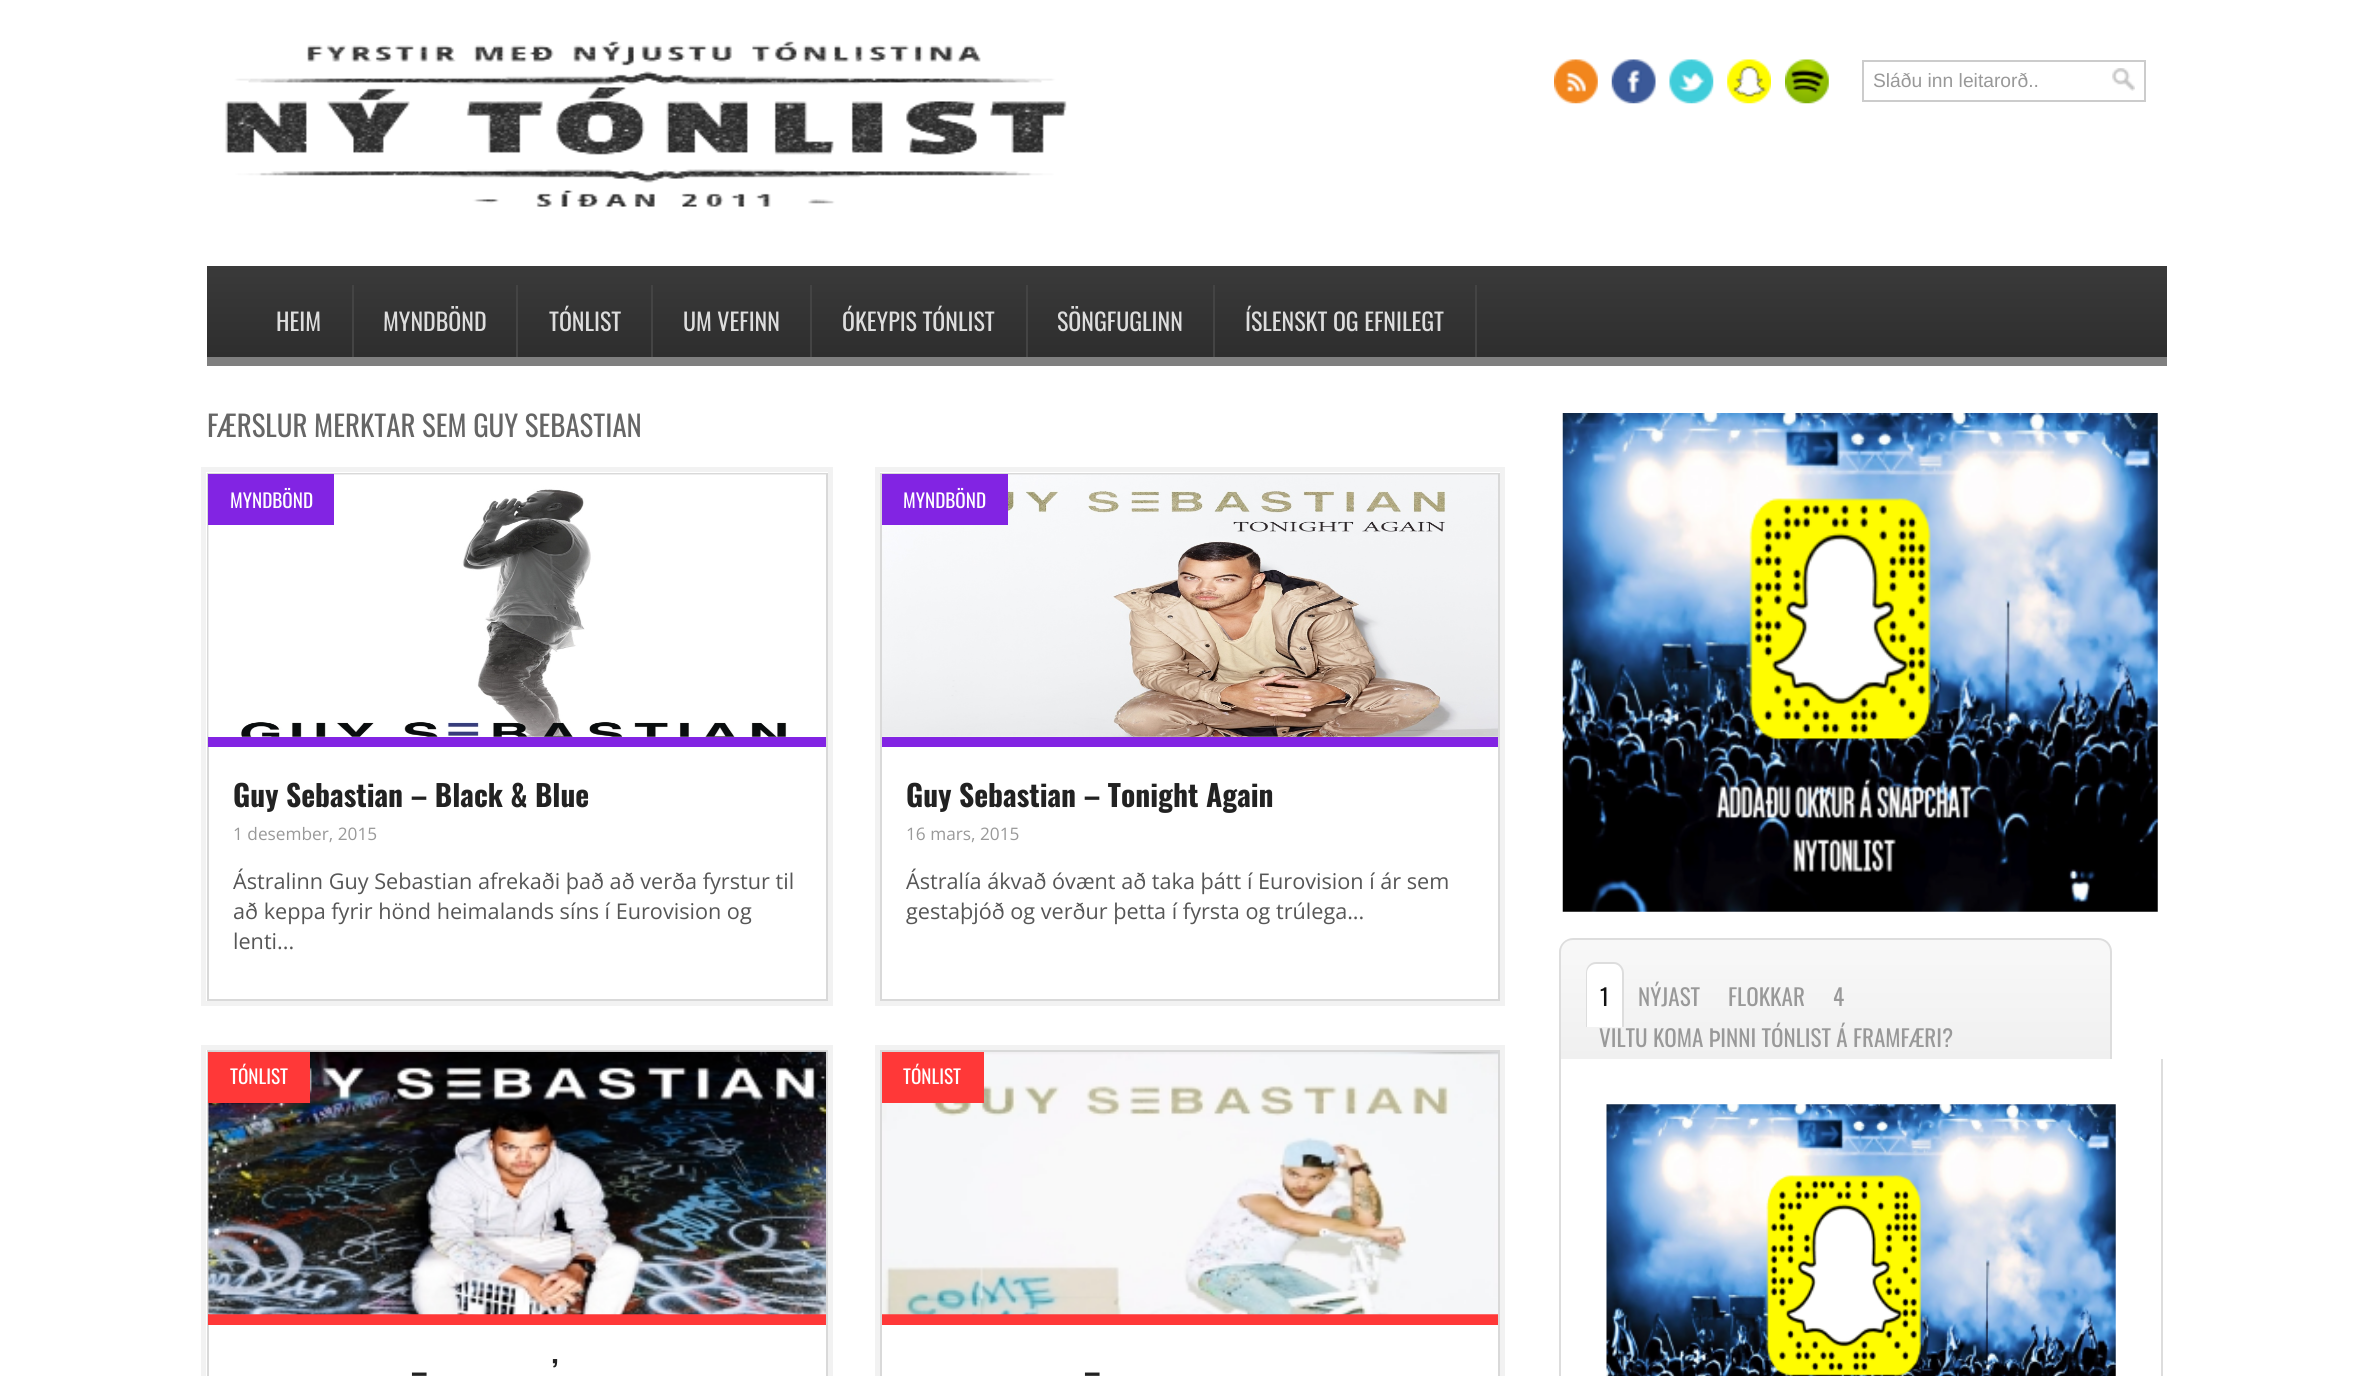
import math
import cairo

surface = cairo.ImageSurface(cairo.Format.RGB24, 2373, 1376)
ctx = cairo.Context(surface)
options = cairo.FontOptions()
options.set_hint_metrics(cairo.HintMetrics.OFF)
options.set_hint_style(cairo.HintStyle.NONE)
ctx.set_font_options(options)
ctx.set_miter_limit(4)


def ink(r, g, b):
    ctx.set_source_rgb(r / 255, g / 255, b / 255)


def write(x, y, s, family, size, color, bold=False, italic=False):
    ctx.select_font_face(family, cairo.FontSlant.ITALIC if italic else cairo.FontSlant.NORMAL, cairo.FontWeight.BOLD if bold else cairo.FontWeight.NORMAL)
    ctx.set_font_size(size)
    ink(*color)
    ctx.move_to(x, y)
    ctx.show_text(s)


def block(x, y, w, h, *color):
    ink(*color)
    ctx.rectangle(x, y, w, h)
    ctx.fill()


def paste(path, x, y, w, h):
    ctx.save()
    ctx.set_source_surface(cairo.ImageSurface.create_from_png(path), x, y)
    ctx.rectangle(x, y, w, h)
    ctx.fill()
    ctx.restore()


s1 = dict(family="Liberation Sans", size=19.25, color=(153, 153, 153))
s2 = dict(family="Oswald", size=24, color=(221, 221, 221))
s3 = dict(family="Oswald", size=28.9, color=(102, 102, 102))
s4 = dict(family="Oswald", size=19.25, color=(255, 255, 255))
s5 = dict(family="Oswald", size=29.6, color=(34, 34, 34), bold=True)
s6 = dict(family="Open Sans", size=17.25, color=(153, 153, 153))
s7 = dict(family="Open Sans", size=21.65, color=(86, 86, 86))
s8 = dict(family="Oswald", size=23.1, color=(17, 17, 17))
s9 = dict(family="Oswald", size=23.1, color=(153, 153, 153))

ink(255, 255, 255)
ctx.paint()
paste("pic1.png", 225, 41, 842, 166)
paste("pic2.png", 1554, 59, 44, 45)
paste("pic3.png", 1611, 59, 45, 45)
paste("pic4.png", 1669, 59, 45, 45)
paste("pic5.png", 1727, 59, 44, 45)
paste("pic6.png", 1785, 59, 44, 45)
paste("pic7.png", 2112, 68, 23, 23)
ctx.rectangle(1863, 61, 282, 40)
ink(204, 204, 204)
ctx.stroke()
write(1873, 87, "Sláðu inn leitarorð..", **s1)
gradient = cairo.LinearGradient(1187, 266, 1187, 357)
gradient.add_color_stop_rgba(0, 0.227, 0.227, 0.227, 1)
gradient.add_color_stop_rgba(1, 0.18, 0.18, 0.18, 1)
ctx.set_source(gradient)
ctx.rectangle(207, 266, 1960, 91)
ctx.fill()
block(207, 357, 1960, 9, 127, 127, 127)
block(352, 285, 2, 72, 68, 68, 68)
write(276, 331, "HEIM", **s2)
block(516, 285, 2, 72, 68, 68, 68)
write(383, 331, "MYNDBÖND", **s2)
block(651, 285, 2, 72, 68, 68, 68)
write(549, 331, "TÓNLIST", **s2)
block(810, 285, 2, 72, 68, 68, 68)
write(683, 331, "UM VEFINN", **s2)
block(1026, 285, 2, 72, 68, 68, 68)
write(842, 331, "ÓKEYPIS TÓNLIST", **s2)
block(1213, 285, 2, 72, 68, 68, 68)
write(1057, 331, "SÖNGFUGLINN", **s2)
block(1475, 285, 2, 72, 68, 68, 68)
write(1245, 331, "ÍSLENSKT OG EFNILEGT", **s2)
write(207, 437, "FÆRSLUR MERKTAR SEM GUY SEBASTIAN", **s3)
ctx.rectangle(203.5, 469.5, 627, 534)
ink(242, 242, 242)
ctx.set_line_width(5)
ctx.stroke()
ctx.rectangle(208, 474, 619, 526)
ink(217, 217, 217)
ctx.set_line_width(2)
ctx.stroke()
block(208, 737, 618, 10, 130, 36, 227)
paste("pic8.png", 208, 474, 618, 263)
block(208, 474, 126, 51, 130, 36, 227)
write(230, 508, "MYNDBÖND", **s4)
write(233, 807, "Guy Sebastian – Black & Blue", **s5)
write(233, 840, "1 desember, 2015", **s6)
write(233, 889, "Ástralinn Guy Sebastian afrekaði það að verða fyrstur til", **s7)
write(233, 919, "að keppa fyrir hönd heimalands síns í Eurovision og", **s7)
write(233, 949, "lenti...", **s7)
ctx.rectangle(877.5, 469.5, 625, 534)
ink(242, 242, 242)
ctx.set_line_width(5)
ctx.stroke()
ctx.rectangle(881, 474, 618, 526)
ink(217, 217, 217)
ctx.set_line_width(2)
ctx.stroke()
block(882, 737, 616, 10, 130, 36, 227)
paste("pic9.png", 882, 474, 616, 263)
block(882, 474, 126, 51, 130, 36, 227)
write(903, 508, "MYNDBÖND", **s4)
write(906, 807, "Guy Sebastian – Tonight Again", **s5)
write(906, 840, "16 mars, 2015", **s6)
write(906, 889, "Ástralía ákvað óvænt að taka þátt í Eurovision í ár sem", **s7)
write(906, 919, "gestaþjóð og verður þetta í fyrsta og trúlega...", **s7)
ctx.rectangle(203.5, 1047.5, 627, 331)
ink(242, 242, 242)
ctx.set_line_width(5)
ctx.stroke()
ctx.rectangle(208, 1051, 619, 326)
ink(217, 217, 217)
ctx.set_line_width(2)
ctx.stroke()
block(208, 1314, 618, 11, 255, 56, 56)
paste("pic10.png", 208, 1051, 618, 264)
block(208, 1052, 102, 51, 255, 56, 56)
write(230, 1084, "TÓNLIST", **s4)
write(552, 1383, "’", **s5)
write(411, 1383, "–", **s5)
ctx.rectangle(877.5, 1047.5, 625, 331)
ink(242, 242, 242)
ctx.set_line_width(5)
ctx.stroke()
ctx.rectangle(881, 1051, 618, 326)
ink(217, 217, 217)
ctx.set_line_width(2)
ctx.stroke()
block(882, 1314, 616, 11, 255, 56, 56)
paste("pic11.png", 882, 1052, 616, 263)
block(882, 1052, 102, 51, 255, 56, 56)
write(903, 1084, "TÓNLIST", **s4)
write(1084, 1383, "–", **s5)
paste("pic12.png", 1562, 413, 596, 499)
ctx.save()
ctx.new_path()
ctx.move_to(1573, 938)
ctx.line_to(2098, 938)
ctx.curve_to(2105.5, 938, 2112, 944.5, 2112, 952)
ctx.line_to(2112, 1059)
ctx.line_to(1559, 1059)
ctx.line_to(1559, 952)
ctx.curve_to(1559, 944.5, 1565.5, 938, 1573, 938)
ctx.close_path()
ctx.clip()
gradient = cairo.LinearGradient(1836, 940, 1836, 1059)
gradient.add_color_stop_rgba(0.01, 0.973, 0.973, 0.973, 1)
gradient.add_color_stop_rgba(1, 0.941, 0.941, 0.941, 1)
ctx.set_source(gradient)
ctx.rectangle(1559, 940, 553, 119)
ctx.fill()
ctx.restore()
ink(221, 221, 221)
ctx.set_fill_rule(cairo.FillRule.EVEN_ODD)
ctx.new_path()
ctx.move_to(1573, 938)
ctx.line_to(2098, 938)
ctx.curve_to(2106, 938, 2112, 944, 2112, 952)
ctx.line_to(2112, 1059)
ctx.line_to(1559, 1059)
ctx.line_to(1559, 952)
ctx.curve_to(1559, 944, 1566, 938, 1573, 938)
ctx.close_path()
ctx.move_to(1573, 940)
ctx.line_to(2098, 940)
ctx.curve_to(2105, 940, 2110, 945, 2110, 952)
ctx.line_to(2110, 1059)
ctx.line_to(1561, 1059)
ctx.line_to(1561, 952)
ctx.curve_to(1561, 945, 1566, 940, 1573, 940)
ctx.close_path()
ctx.fill()
ink(255, 255, 255)
ctx.new_path()
ctx.move_to(1597, 963)
ctx.line_to(1613, 963)
ctx.curve_to(1619, 963, 1624, 968, 1624, 974)
ctx.line_to(1624, 1027)
ctx.line_to(1586, 1027)
ctx.line_to(1586, 974)
ctx.curve_to(1586, 968, 1591, 963, 1597, 963)
ctx.close_path()
ctx.fill()
ink(221, 221, 221)
ctx.new_path()
ctx.move_to(1596, 962)
ctx.line_to(1614, 962)
ctx.curve_to(1619, 962, 1624, 967, 1624, 973)
ctx.line_to(1624, 1027)
ctx.line_to(1586, 1027)
ctx.line_to(1586, 973)
ctx.curve_to(1586, 967, 1590, 962, 1596, 962)
ctx.close_path()
ctx.move_to(1596, 964)
ctx.line_to(1614, 964)
ctx.curve_to(1618, 964, 1622, 968, 1622, 973)
ctx.line_to(1622, 1027)
ctx.line_to(1587, 1027)
ctx.line_to(1587, 973)
ctx.curve_to(1587, 968, 1591, 964, 1596, 964)
ctx.close_path()
ctx.fill()
write(1600, 1006, "1", **s8)
write(1638, 1006, "NÝJAST", **s9)
write(1728, 1006, "FLOKKAR", **s9)
write(1833, 1006, "4", **s9)
write(1599, 1047, "VILTU KOMA ÞINNI TÓNLIST Á FRAMFÆRI?", **s9)
ink(221, 221, 221)
ctx.new_path()
ctx.move_to(1559, 1059)
ctx.line_to(2163, 1059)
ctx.line_to(2163, 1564)
ctx.curve_to(2163, 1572, 2157, 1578, 2149, 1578)
ctx.line_to(1573, 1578)
ctx.curve_to(1566, 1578, 1559, 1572, 1559, 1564)
ctx.close_path()
ctx.move_to(1561, 1059)
ctx.line_to(2161, 1059)
ctx.line_to(2161, 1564)
ctx.curve_to(2161, 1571, 2156, 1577, 2149, 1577)
ctx.line_to(1573, 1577)
ctx.curve_to(1566, 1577, 1561, 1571, 1561, 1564)
ctx.close_path()
ctx.fill()
paste("pic13.png", 1606, 1104, 510, 272)
surface.write_to_png("screenshot.png")
